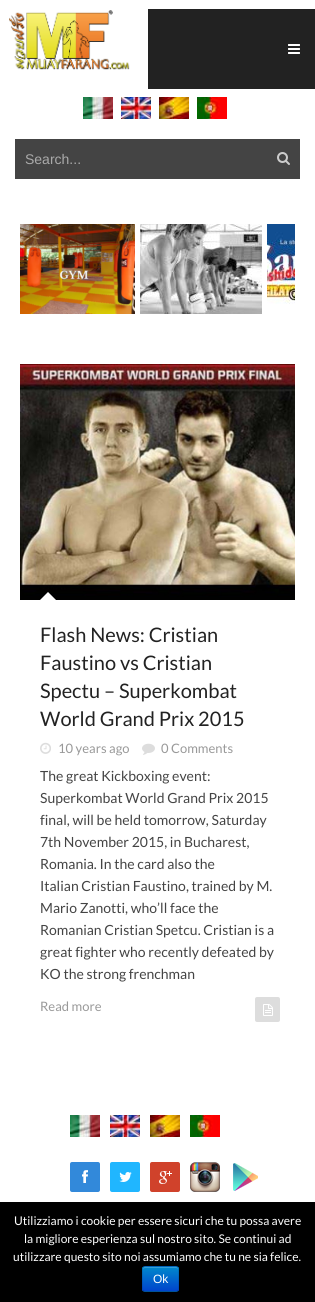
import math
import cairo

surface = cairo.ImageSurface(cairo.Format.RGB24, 315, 1302)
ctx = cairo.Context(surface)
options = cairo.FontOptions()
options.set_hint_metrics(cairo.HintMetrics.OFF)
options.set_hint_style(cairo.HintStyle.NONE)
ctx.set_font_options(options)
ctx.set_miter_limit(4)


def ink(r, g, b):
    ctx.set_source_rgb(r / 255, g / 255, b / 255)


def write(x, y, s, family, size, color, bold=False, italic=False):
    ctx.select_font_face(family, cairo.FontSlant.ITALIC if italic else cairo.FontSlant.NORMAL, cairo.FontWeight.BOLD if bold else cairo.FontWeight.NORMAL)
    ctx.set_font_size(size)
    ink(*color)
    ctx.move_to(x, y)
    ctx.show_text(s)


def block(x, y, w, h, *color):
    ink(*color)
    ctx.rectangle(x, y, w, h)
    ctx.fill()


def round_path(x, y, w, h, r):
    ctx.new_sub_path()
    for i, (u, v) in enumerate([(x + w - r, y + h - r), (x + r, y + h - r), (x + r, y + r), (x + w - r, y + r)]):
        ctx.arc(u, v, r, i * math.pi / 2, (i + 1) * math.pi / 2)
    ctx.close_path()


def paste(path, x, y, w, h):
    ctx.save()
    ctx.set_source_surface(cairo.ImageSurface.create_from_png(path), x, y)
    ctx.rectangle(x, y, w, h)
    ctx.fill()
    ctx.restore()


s1 = dict(family="Liberation Sans", size=14, color=(170, 170, 170))
s2 = dict(family="Lato", size=20, color=(34, 34, 34))
s3 = dict(family="Lato", size=13, color=(153, 153, 153))
s4 = dict(family="Lato", size=14, color=(68, 68, 68))
s5 = dict(family="Lato", size=12, color=(255, 255, 255))
s6 = dict(family="Liberation Sans", size=12, color=(255, 255, 255))

ink(255, 255, 255)
ctx.paint()
paste("pic1.png", 9, 10, 121, 60)
block(148, 9, 167, 80, 34, 34, 34)
paste("pic2.png", 288, 44, 12, 10)
paste("pic3.png", 83, 97, 30, 22)
paste("pic4.png", 121, 97, 30, 22)
paste("pic5.png", 159, 97, 30, 22)
paste("pic6.png", 197, 97, 30, 22)
block(15, 139, 285, 40, 68, 68, 68)
write(25, 164, "Search...", **s1)
paste("pic7.png", 277, 152, 13, 13)
paste("pic8.png", 20, 224, 115, 90)
paste("pic9.png", 140, 224, 122, 90)
paste("pic10.png", 267, 224, 28, 80)
paste("pic11.png", 20, 364, 275, 236)
ink(255, 255, 255)
ctx.new_path()
ctx.move_to(56, 600)
ctx.line_to(40, 600)
ctx.line_to(48, 592)
ctx.close_path()
ctx.fill()
write(40, 642, "Flash News: Cristian", **s2)
write(40, 670, "Faustino vs Cristian", **s2)
write(40, 698, "Spectu – Superkombat", **s2)
write(40, 726, "World Grand Prix 2015", **s2)
paste("pic12.png", 40, 742, 11, 12)
write(58, 753, "10 years ago", **s3)
paste("pic13.png", 142, 743, 13, 12)
write(161, 753, "0 Comments", **s3)
write(40, 781, "The great Kickboxing event:", **s4)
write(40, 803, "Superkombat World Grand Prix 2015", **s4)
write(40, 825, "final, will be held tomorrow, Saturday", **s4)
write(40, 847, "7th November 2015, in Bucharest,", **s4)
write(40, 869, "Romania. In the card also the", **s4)
write(40, 891, "Italian Cristian Faustino, trained by M.", **s4)
write(40, 913, "Mario Zanotti, who’ll face the", **s4)
write(40, 935, "Romanian Cristian Spetcu. Cristian is a", **s4)
write(40, 957, "great fighter who recently defeated by", **s4)
write(40, 979, "KO the strong frenchman", **s4)
write(40, 1011, "Read more", **s3)
ink(221, 221, 221)
round_path(255, 997, 25, 25, 2)
ctx.fill()
paste("pic14.png", 263, 1004, 10, 12)
paste("pic3.png", 70, 1115, 30, 22)
paste("pic15.png", 110, 1115, 30, 22)
paste("pic16.png", 150, 1115, 30, 22)
paste("pic17.png", 190, 1115, 30, 22)
ink(50, 137, 218)
round_path(70, 1162, 30, 30, 2)
ctx.fill()
paste("pic18.png", 82, 1170, 6, 13)
ink(32, 182, 255)
round_path(110, 1162, 30, 30, 2)
ctx.fill()
paste("pic19.png", 119, 1172, 13, 10)
ink(208, 66, 43)
round_path(150, 1162, 30, 30, 2)
ctx.fill()
paste("pic20.png", 159, 1171, 13, 13)
paste("pic21.png", 190, 1162, 30, 30)
paste("pic22.png", 233, 1163, 25, 28)
block(0, 1202, 315, 100, 0, 0, 0)
write(14, 1225, "Utilizziamo i cookie per essere sicuri che tu possa avere", **s5)
write(24, 1243, "la migliore esperienza sul nostro sito. Se continui ad", **s5)
write(13, 1261, "utilizzare questo sito noi assumiamo che tu ne sia felice.", **s5)
ink(0, 109, 204)
round_path(142, 1266, 37, 26, 3)
ctx.fill()
ctx.save()
round_path(142, 1266, 37, 26, 3)
ctx.clip()
gradient = cairo.LinearGradient(161, 1267, 161, 1291)
gradient.add_color_stop_rgba(0, 0, 0.533, 0.8, 1)
gradient.add_color_stop_rgba(1, 0, 0.267, 0.8, 1)
ctx.set_source(gradient)
ctx.rectangle(142, 1267, 37, 24)
ctx.fill()
ctx.restore()
ctx.set_source_rgba(1, 1, 1, 0.2)
ctx.new_path()
ctx.move_to(145, 1268)
ctx.line_to(176, 1268)
ctx.curve_to(177, 1268, 178, 1269, 178, 1270)
ctx.curve_to(178, 1265.5, 174.5, 1267, 171, 1267)
ctx.line_to(150, 1267)
ctx.curve_to(146.5, 1267, 143, 1265.5, 143, 1270)
ctx.curve_to(143, 1269, 144, 1268, 145, 1268)
ctx.close_path()
ctx.fill()
ctx.new_path()
ctx.move_to(178, 1291)
ctx.curve_to(177.5, 1291, 176.5, 1291.5, 176, 1291.5)
ctx.line_to(145, 1291.5)
ctx.curve_to(144.5, 1291.5, 143.5, 1291, 143, 1291)
ctx.set_source_rgba(0, 0, 0, 0.25)
ctx.set_line_width(1)
ctx.stroke()
ctx.new_path()
ctx.move_to(143, 1291)
ctx.curve_to(143, 1290.5, 142.5, 1289.5, 142.5, 1289)
ctx.line_to(142.5, 1269)
ctx.curve_to(142.5, 1268.5, 143, 1267.5, 143, 1267)
ctx.curve_to(143.5, 1267, 144.5, 1266.5, 145, 1266.5)
ctx.line_to(176, 1266.5)
ctx.curve_to(176.5, 1266.5, 177.5, 1267, 178, 1267)
ctx.curve_to(178, 1267.5, 178.5, 1268.5, 178.5, 1269)
ctx.line_to(178.5, 1289)
ctx.curve_to(178.5, 1289.5, 178, 1290.5, 178, 1291)
ctx.set_source_rgba(0, 0, 0, 0.1)
ctx.stroke()
write(153, 1283, "Ok", **s6)
surface.write_to_png("screenshot.png")
